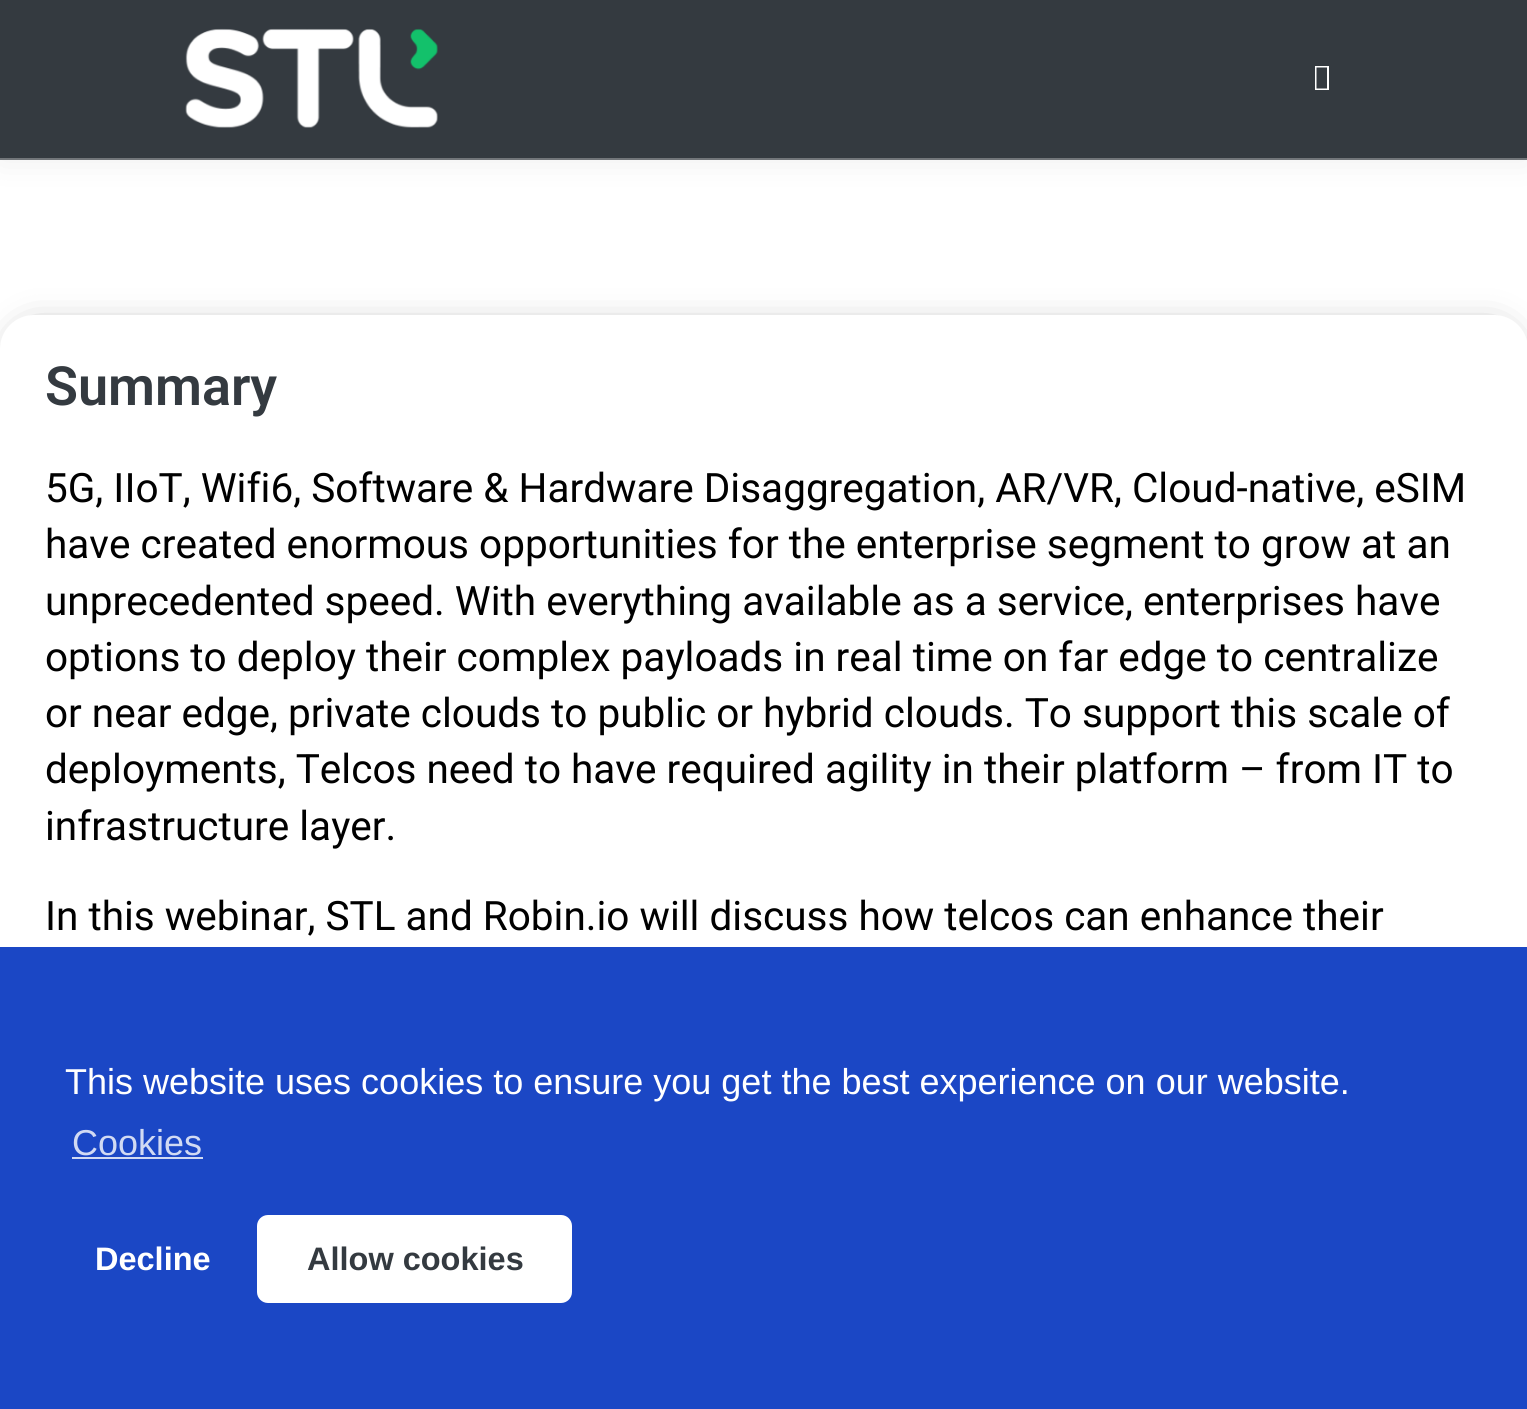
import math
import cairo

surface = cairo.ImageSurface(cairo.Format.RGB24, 1527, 1409)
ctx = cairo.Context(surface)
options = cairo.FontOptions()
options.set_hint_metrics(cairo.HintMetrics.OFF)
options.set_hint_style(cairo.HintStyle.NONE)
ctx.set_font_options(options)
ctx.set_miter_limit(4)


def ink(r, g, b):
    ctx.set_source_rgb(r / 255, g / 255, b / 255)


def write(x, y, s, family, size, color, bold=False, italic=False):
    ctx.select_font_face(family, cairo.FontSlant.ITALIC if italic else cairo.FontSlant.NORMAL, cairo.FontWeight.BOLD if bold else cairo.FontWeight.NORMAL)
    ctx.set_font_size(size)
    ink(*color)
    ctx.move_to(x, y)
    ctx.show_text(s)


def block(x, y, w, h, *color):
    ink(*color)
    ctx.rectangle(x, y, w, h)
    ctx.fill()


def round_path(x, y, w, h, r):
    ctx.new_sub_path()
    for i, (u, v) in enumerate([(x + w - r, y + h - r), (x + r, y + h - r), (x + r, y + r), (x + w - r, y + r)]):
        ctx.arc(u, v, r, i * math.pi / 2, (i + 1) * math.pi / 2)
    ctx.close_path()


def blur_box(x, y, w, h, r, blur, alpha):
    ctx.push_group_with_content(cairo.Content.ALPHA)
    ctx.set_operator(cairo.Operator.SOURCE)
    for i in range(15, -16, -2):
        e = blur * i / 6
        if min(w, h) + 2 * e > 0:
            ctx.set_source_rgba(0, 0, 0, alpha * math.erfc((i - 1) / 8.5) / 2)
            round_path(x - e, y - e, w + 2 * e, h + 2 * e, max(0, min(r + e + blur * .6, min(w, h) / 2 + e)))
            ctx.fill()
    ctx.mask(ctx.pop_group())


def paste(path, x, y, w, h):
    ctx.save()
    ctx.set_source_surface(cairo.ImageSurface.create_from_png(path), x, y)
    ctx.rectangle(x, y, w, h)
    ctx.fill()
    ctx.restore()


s1 = dict(family="Roboto SemiBold", size=54, color=(52, 58, 64))
s2 = dict(family="Roboto", size=40.5, color=(0, 0, 0))
s3 = dict(family="Liberation Sans", size=36, color=(255, 255, 255))
s4 = dict(family="Liberation Sans", size=36, color=(209, 218, 243))
s5 = dict(family="Liberation Sans", size=32.5, color=(255, 255, 255), bold=True)
s6 = dict(family="Liberation Sans", size=32.5, color=(52, 58, 64), bold=True)

ink(255, 255, 255)
ctx.paint()
ink(0, 0, 0)
blur_box(0, 0, 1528, 160, 0, 18, 0.07)
block(0, 0, 1527, 158, 52, 58, 64)
block(0, 158, 1527, 2, 114, 118, 122)
paste("pic1.png", 185, 28, 253, 100)
ink(255, 255, 255)
ctx.new_path()
ctx.move_to(1315, 90)
ctx.line_to(1315, 66)
ctx.line_to(1329, 66)
ctx.line_to(1329, 90)
ctx.close_path()
ctx.move_to(1316.5, 88.5)
ctx.line_to(1327, 88.5)
ctx.line_to(1327, 67.5)
ctx.line_to(1316.5, 67.5)
ctx.close_path()
ctx.fill()
ink(0, 0, 0)
blur_box(20, 335, 1488, 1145, 14, 19, 0.5)
ink(255, 255, 255)
round_path(0, 315, 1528, 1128, 34)
ctx.fill()
write(45, 405, "Summary", **s1)
write(45, 502, "5G, IIoT, Wifi6, Software & Hardware Disaggregation, AR/VR, Cloud-native, eSIM", **s2)
write(45, 558, "have created enormous opportunities for the enterprise segment to grow at an", **s2)
write(45, 615, "unprecedented speed. With everything available as a service, enterprises have", **s2)
write(45, 671, "options to deploy their complex payloads in real time on far edge to centralize", **s2)
write(45, 727, "or near edge, private clouds to public or hybrid clouds. To support this scale of", **s2)
write(45, 783, "deployments, Telcos need to have required agility in their platform – from IT to", **s2)
write(45, 840, "infrastructure layer.", **s2)
write(45, 930, "In this webinar, STL and Robin.io will discuss how telcos can enhance their", **s2)
block(0, 947, 1527, 462, 27, 71, 197)
write(65, 1094, "This website uses cookies to ensure you get the best experience on our website.", **s3)
write(72, 1155, "Cookies", **s4)
block(72, 1157, 131, 2, 209, 218, 243)
write(95, 1270, "Decline", **s5)
round_path(257, 1215, 315, 88, 11)
ctx.fill()
write(307, 1270, "Allow cookies", **s6)
surface.write_to_png("screenshot.png")
